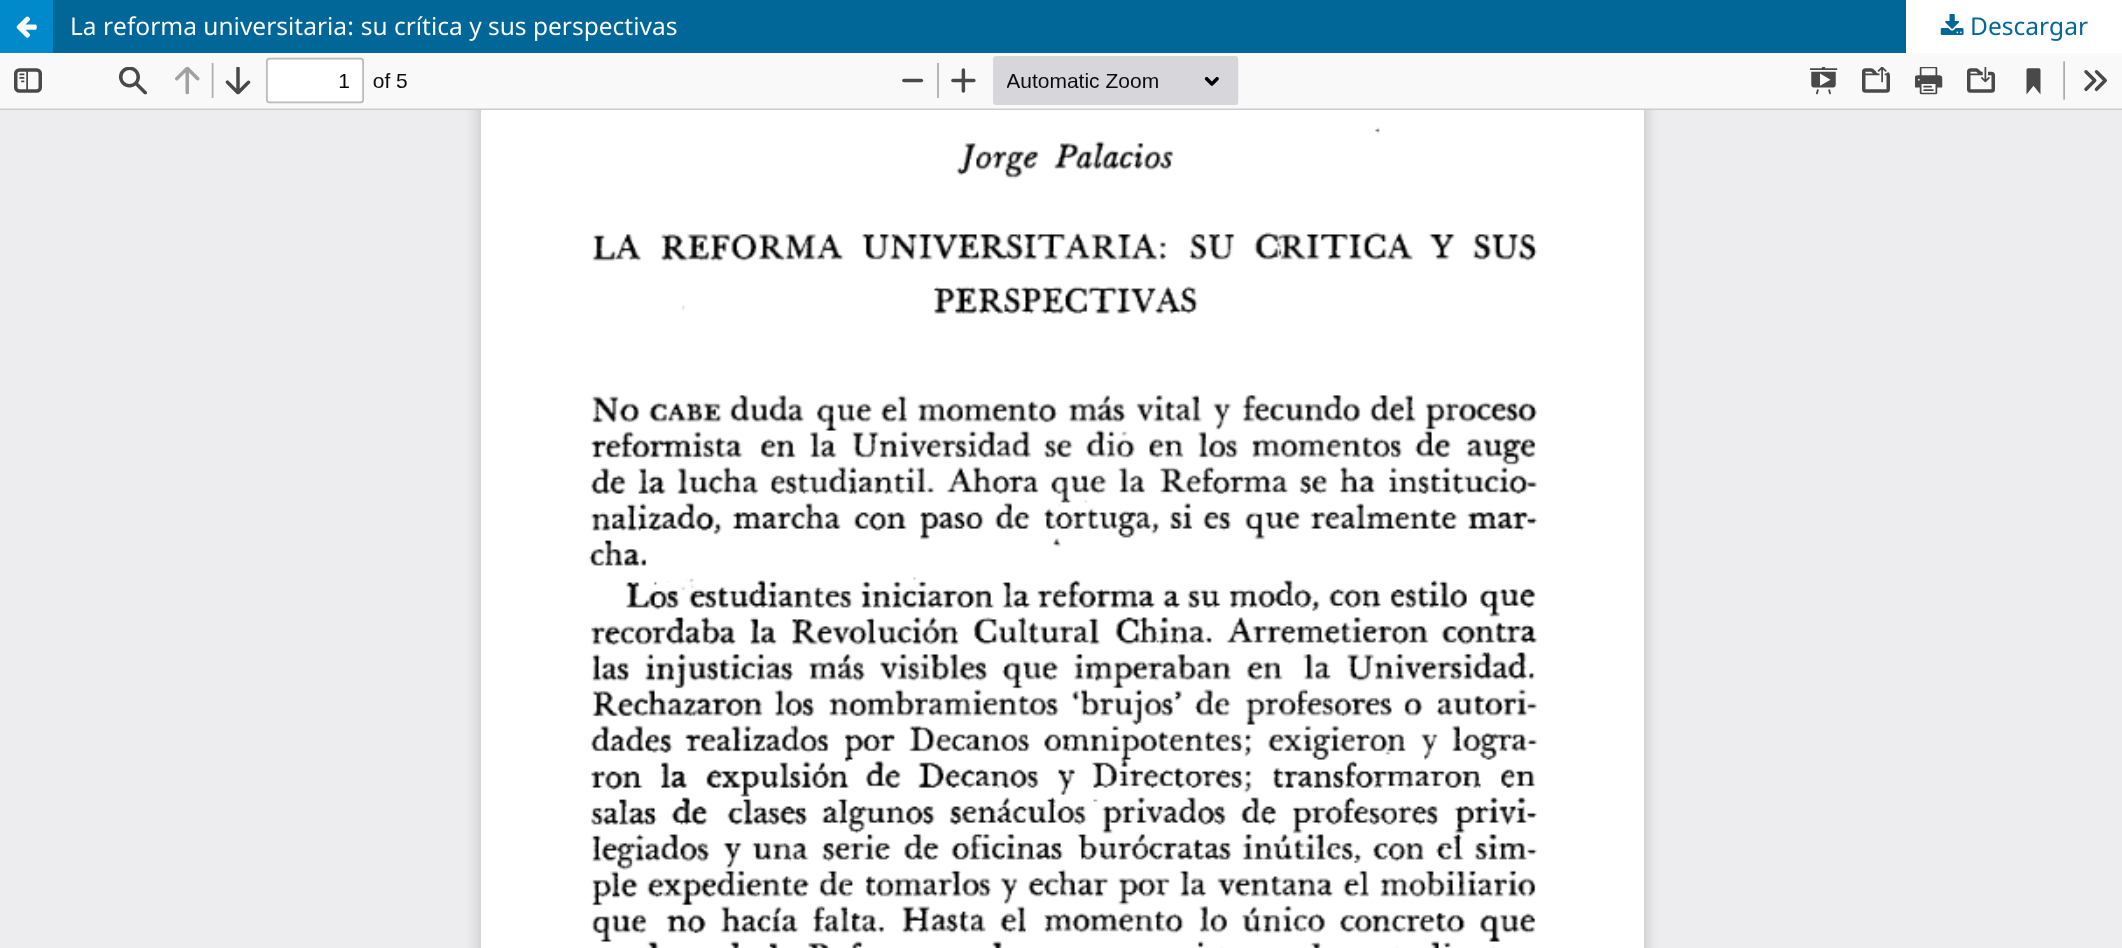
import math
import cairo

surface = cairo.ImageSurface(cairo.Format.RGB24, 2122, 948)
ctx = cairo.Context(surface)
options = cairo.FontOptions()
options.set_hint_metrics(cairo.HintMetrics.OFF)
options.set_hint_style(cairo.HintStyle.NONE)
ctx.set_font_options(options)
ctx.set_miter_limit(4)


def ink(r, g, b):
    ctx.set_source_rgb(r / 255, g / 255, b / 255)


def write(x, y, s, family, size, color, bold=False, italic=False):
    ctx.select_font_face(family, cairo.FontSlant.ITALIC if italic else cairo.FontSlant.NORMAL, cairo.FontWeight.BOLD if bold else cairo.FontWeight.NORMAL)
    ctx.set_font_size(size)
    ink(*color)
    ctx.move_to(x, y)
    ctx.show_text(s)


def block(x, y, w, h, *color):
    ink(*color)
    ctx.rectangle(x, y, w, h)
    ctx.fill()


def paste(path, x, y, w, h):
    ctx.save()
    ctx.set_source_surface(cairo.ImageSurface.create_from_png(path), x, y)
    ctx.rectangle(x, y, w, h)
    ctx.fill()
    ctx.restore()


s1 = dict(family="Noto Sans", size=24.5, color=(255, 255, 255))
s2 = dict(family="Noto Sans", size=24.5, color=(0, 103, 152))

ink(255, 255, 255)
ctx.paint()
block(53, 0, 1853, 53, 0, 103, 152)
block(0, 0, 53, 53, 0, 138, 203)
paste("pic1.png", 16, 16, 21, 22)
write(70, 35, "La reforma universitaria: su crítica y sus perspectivas", **s1)
paste("pic2.png", 1940, 14, 24, 21)
write(1970, 35, "Descargar", **s2)
paste("pic3.png", 0, 53, 2122, 895)
surface.write_to_png("screenshot.png")
